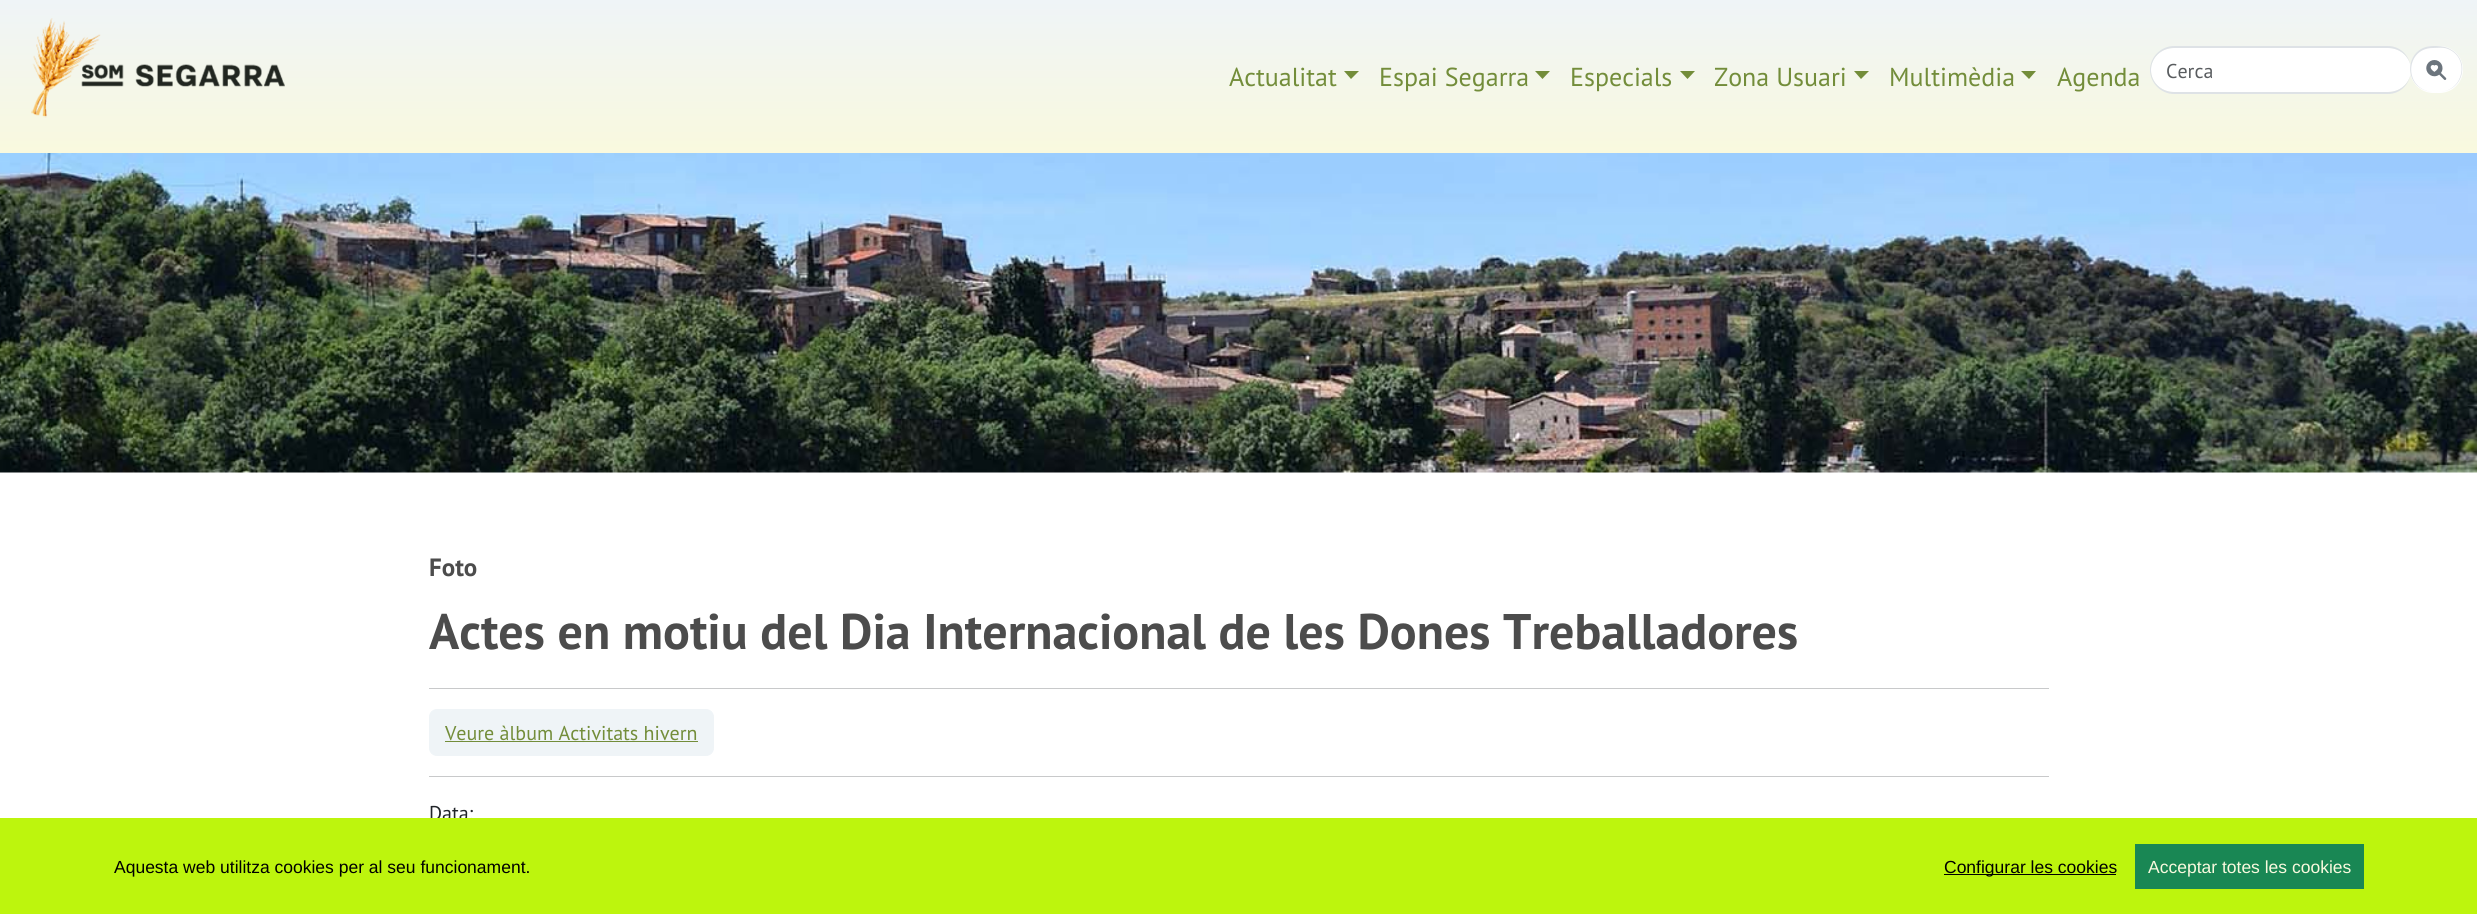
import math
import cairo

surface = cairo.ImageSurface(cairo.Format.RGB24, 2477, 914)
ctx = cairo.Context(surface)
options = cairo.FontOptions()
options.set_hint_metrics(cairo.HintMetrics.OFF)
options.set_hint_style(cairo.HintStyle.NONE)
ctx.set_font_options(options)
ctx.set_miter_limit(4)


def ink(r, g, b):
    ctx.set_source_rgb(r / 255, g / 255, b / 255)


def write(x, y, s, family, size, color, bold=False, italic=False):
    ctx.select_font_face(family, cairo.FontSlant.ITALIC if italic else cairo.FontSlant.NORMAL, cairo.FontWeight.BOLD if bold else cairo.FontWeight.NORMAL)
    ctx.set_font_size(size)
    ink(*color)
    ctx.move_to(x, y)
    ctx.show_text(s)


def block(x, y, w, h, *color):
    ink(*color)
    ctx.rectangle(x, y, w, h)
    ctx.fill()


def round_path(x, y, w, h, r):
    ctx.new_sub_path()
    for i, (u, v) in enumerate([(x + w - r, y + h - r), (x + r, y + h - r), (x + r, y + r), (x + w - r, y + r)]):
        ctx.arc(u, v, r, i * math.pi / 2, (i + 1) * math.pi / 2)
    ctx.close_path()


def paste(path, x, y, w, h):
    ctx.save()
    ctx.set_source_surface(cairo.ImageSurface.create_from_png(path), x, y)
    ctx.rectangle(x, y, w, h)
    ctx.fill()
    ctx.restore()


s1 = dict(family="PT Sans", size=26, color=(115, 141, 58))
s2 = dict(family="PT Sans", size=20, color=(89, 92, 95))
s3 = dict(family="PT Sans", size=25, color=(76, 76, 76), bold=True)
s4 = dict(family="PT Sans", size=50, color=(76, 76, 76), bold=True)
s5 = dict(family="PT Sans", size=20, color=(115, 141, 58))
s6 = dict(family="PT Sans", size=20, color=(33, 37, 41))
s7 = dict(family="Liberation Sans", size=17.5, color=(0, 0, 0))
s8 = dict(family="Liberation Sans", size=17.5, color=(249, 249, 222))

ink(255, 255, 255)
ctx.paint()
gradient = cairo.LinearGradient(1239, 0, 1239, 153)
gradient.add_color_stop_rgba(0, 0.937, 0.957, 0.969, 1)
gradient.add_color_stop_rgba(1, 0.976, 0.976, 0.871, 1)
ctx.set_source(gradient)
ctx.rectangle(0, 0, 2477, 153)
ctx.fill()
paste("pic1.png", 31, 18, 254, 100)
write(1229, 86, "Actualitat", **s1)
ctx.new_path()
ctx.move_to(1344, 71)
ctx.line_to(1359, 71)
ctx.line_to(1351, 79)
ctx.close_path()
ctx.fill()
write(1379, 86, "Espai Segarra", **s1)
ctx.new_path()
ctx.move_to(1535, 71)
ctx.line_to(1550, 71)
ctx.line_to(1542.5, 79)
ctx.close_path()
ctx.fill()
write(1570, 86, "Especials", **s1)
ctx.new_path()
ctx.move_to(1680, 71)
ctx.line_to(1695, 71)
ctx.line_to(1687.5, 79)
ctx.close_path()
ctx.fill()
write(1714, 86, "Zona Usuari", **s1)
ctx.new_path()
ctx.move_to(1854, 71)
ctx.line_to(1869, 71)
ctx.line_to(1861, 79)
ctx.close_path()
ctx.fill()
write(1889, 86, "Multimèdia", **s1)
ctx.new_path()
ctx.move_to(2021, 71)
ctx.line_to(2036, 71)
ctx.line_to(2029, 79)
ctx.close_path()
ctx.fill()
write(2057, 86, "Agenda", **s1)
ink(255, 255, 255)
ctx.new_path()
ctx.move_to(2174, 48)
ctx.line_to(2388, 48)
ctx.curve_to(2401, 48, 2411, 58, 2411, 70)
ctx.curve_to(2411, 82, 2401, 92, 2388, 92)
ctx.line_to(2174, 92)
ctx.curve_to(2161, 92, 2151, 82, 2151, 70)
ctx.curve_to(2151, 58, 2161, 48, 2174, 48)
ctx.close_path()
ctx.fill()
ink(222, 226, 230)
ctx.set_fill_rule(cairo.FillRule.EVEN_ODD)
ctx.new_path()
ctx.move_to(2174, 46)
ctx.line_to(2388, 46)
ctx.curve_to(2401, 46, 2411, 57, 2411, 70)
ctx.curve_to(2411, 83, 2401, 94, 2388, 94)
ctx.line_to(2174, 94)
ctx.curve_to(2161, 94, 2150, 83, 2150, 70)
ctx.curve_to(2150, 57, 2161, 46, 2174, 46)
ctx.close_path()
ctx.move_to(2174, 48)
ctx.line_to(2388, 48)
ctx.curve_to(2401, 48, 2411, 58, 2411, 70)
ctx.curve_to(2411, 82, 2401, 92, 2388, 92)
ctx.line_to(2174, 92)
ctx.curve_to(2161, 92, 2151, 82, 2151, 70)
ctx.curve_to(2151, 58, 2161, 48, 2174, 48)
ctx.close_path()
ctx.fill()
write(2166, 78, "Cerca", **s2)
ink(255, 255, 255)
round_path(2410, 46, 53, 47, 23.5)
ctx.fill()
ink(222, 226, 230)
ctx.new_path()
ctx.move_to(2433, 46)
ctx.curve_to(2438, 46, 2443, 46, 2448, 48)
ctx.curve_to(2471, 58, 2465, 91, 2439, 92)
ctx.curve_to(2401, 95, 2402, 46, 2433, 46)
ctx.close_path()
ctx.move_to(2433, 48)
ctx.curve_to(2438, 48, 2443, 47, 2448, 49)
ctx.curve_to(2470, 58, 2464, 91, 2439, 92)
ctx.curve_to(2403, 95, 2403, 48, 2433, 48)
ctx.close_path()
ctx.fill()
paste("pic2.png", 2426, 60, 21, 20)
paste("pic3.png", 0, 153, 2477, 320)
write(429, 576, "Foto", **s3)
write(429, 649, "Actes en motiu del Dia Internacional de les Dones Treballadores", **s4)
block(429, 688, 1620, 1, 200, 201, 202)
ink(239, 244, 247)
round_path(429.5, 709.5, 284, 46, 7.5)
ctx.fill_preserve()
ctx.set_line_width(1)
ctx.stroke()
write(445, 740, "Veure àlbum Activitats hivern", **s5)
block(445, 741, 253, 1, 115, 141, 58)
block(429, 776, 1620, 1, 200, 201, 202)
write(429, 820, "Data:", **s6)
block(0, 818, 2477, 96, 189, 245, 13)
write(114, 873, "Aquesta web utilitza cookies per al seu funcionament.", **s7)
block(1944, 874, 172, 1, 0, 0, 0)
write(1944, 873, "Configurar les cookies", **s7)
block(2135, 844, 229, 45, 25, 135, 84)
write(2148, 873, "Acceptar totes les cookies", **s8)
surface.write_to_png("screenshot.png")
